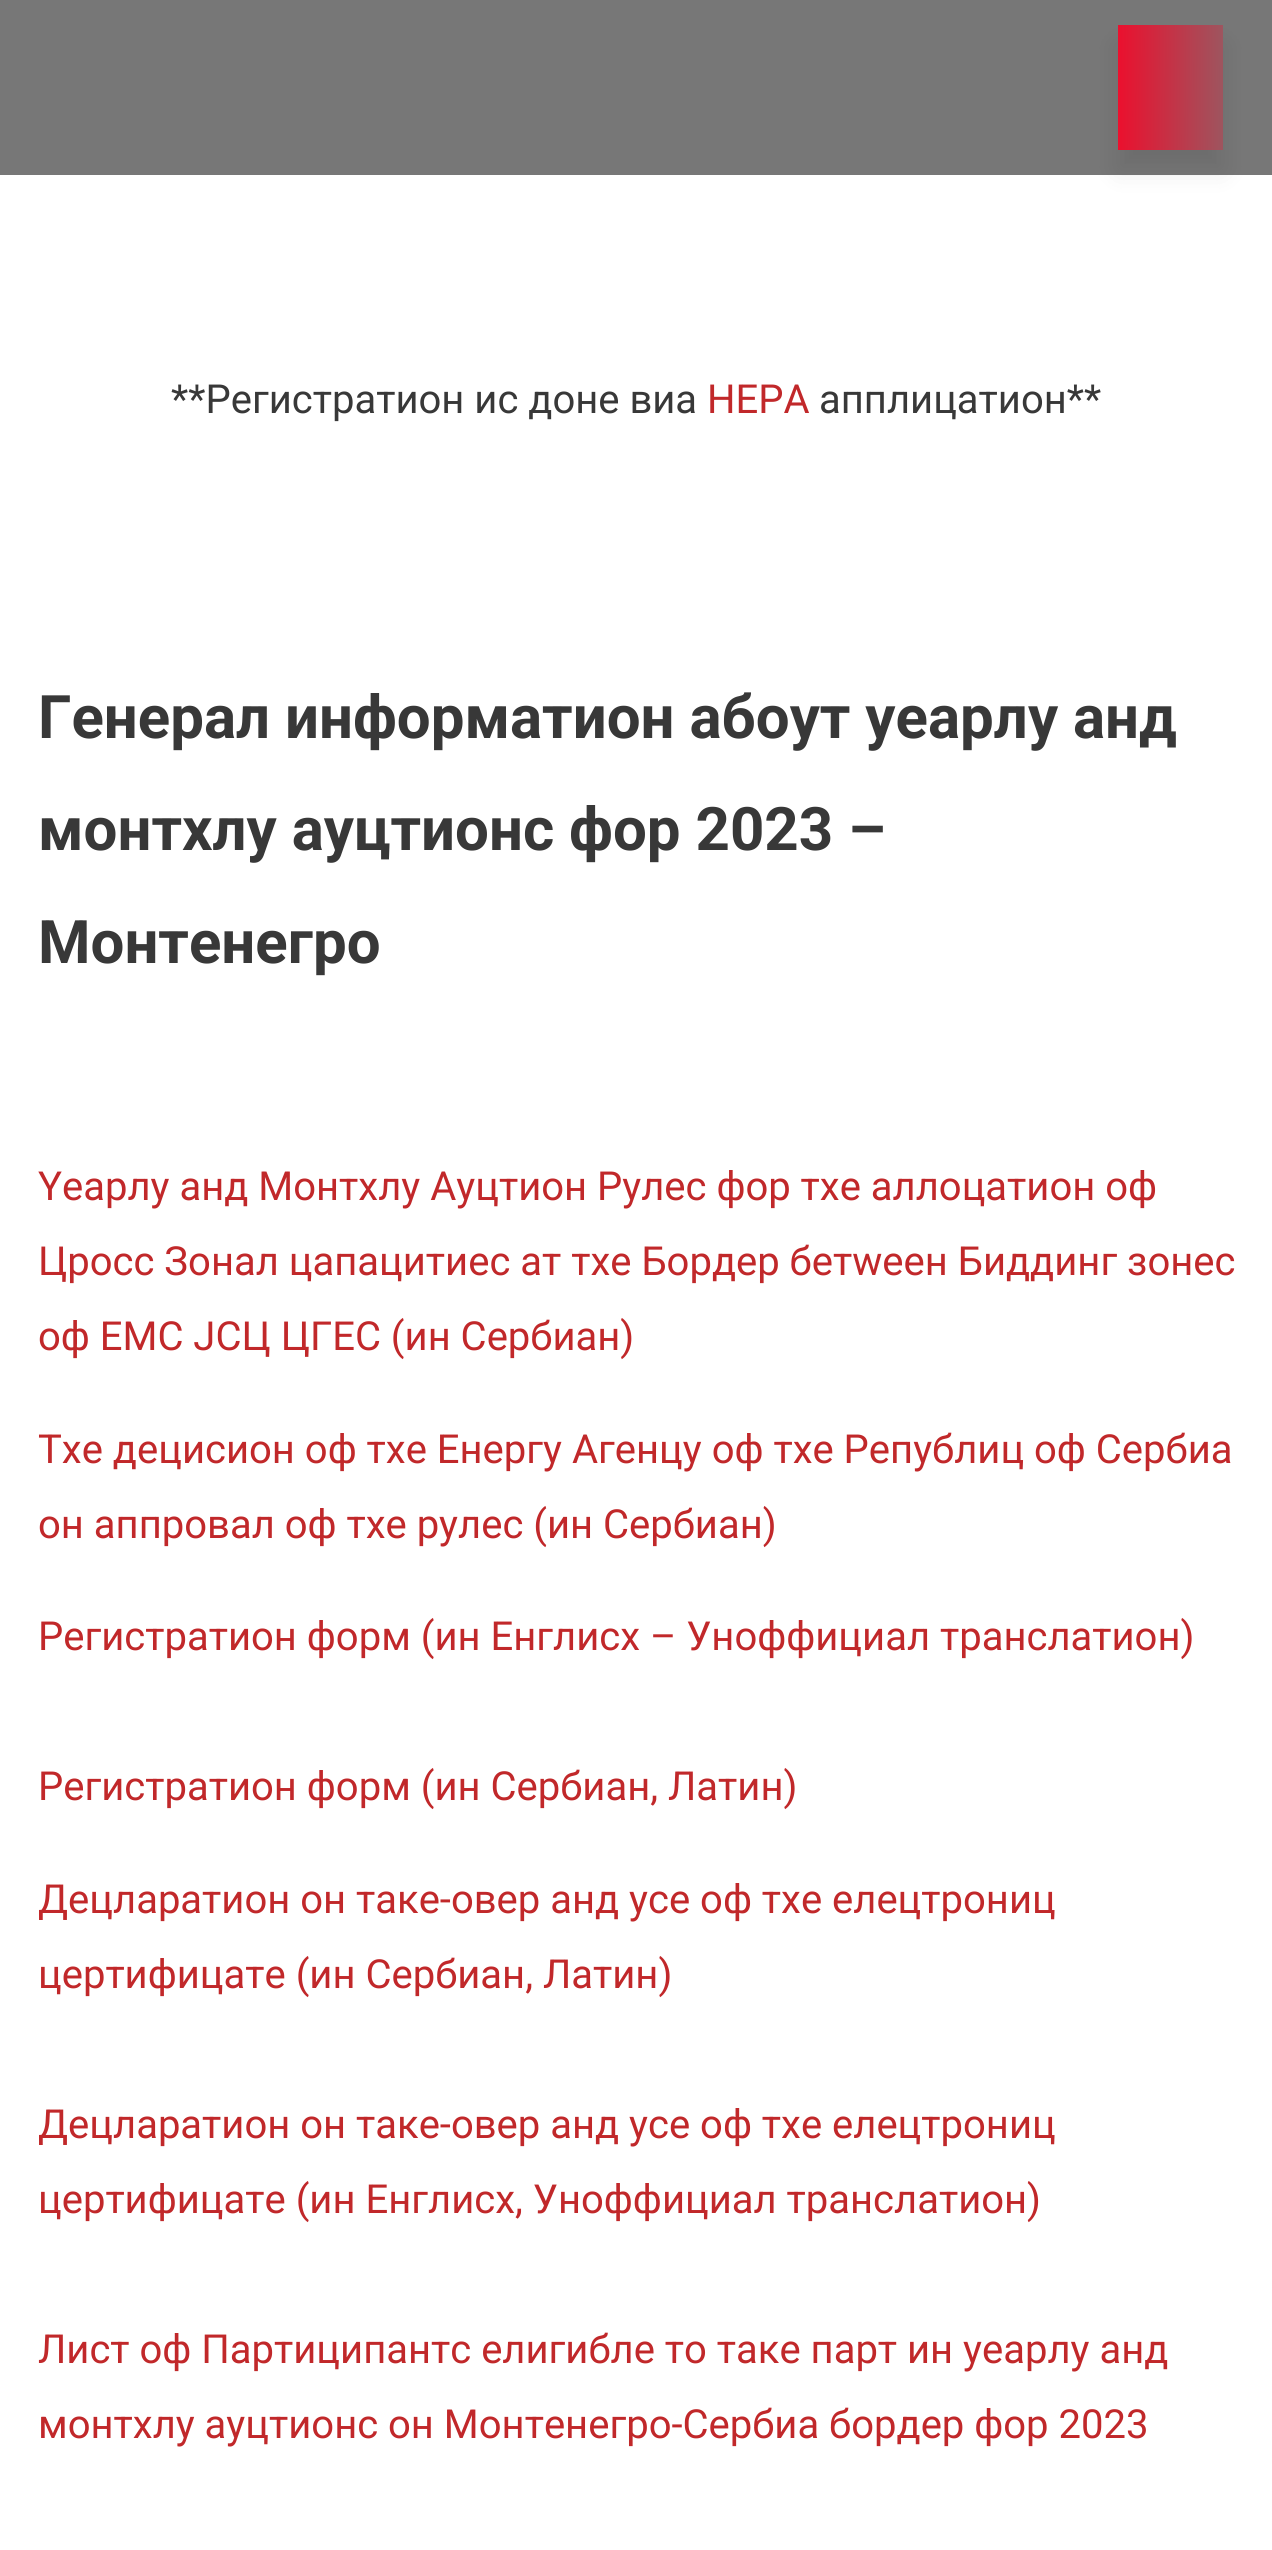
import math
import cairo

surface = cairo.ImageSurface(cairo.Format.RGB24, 1272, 2550)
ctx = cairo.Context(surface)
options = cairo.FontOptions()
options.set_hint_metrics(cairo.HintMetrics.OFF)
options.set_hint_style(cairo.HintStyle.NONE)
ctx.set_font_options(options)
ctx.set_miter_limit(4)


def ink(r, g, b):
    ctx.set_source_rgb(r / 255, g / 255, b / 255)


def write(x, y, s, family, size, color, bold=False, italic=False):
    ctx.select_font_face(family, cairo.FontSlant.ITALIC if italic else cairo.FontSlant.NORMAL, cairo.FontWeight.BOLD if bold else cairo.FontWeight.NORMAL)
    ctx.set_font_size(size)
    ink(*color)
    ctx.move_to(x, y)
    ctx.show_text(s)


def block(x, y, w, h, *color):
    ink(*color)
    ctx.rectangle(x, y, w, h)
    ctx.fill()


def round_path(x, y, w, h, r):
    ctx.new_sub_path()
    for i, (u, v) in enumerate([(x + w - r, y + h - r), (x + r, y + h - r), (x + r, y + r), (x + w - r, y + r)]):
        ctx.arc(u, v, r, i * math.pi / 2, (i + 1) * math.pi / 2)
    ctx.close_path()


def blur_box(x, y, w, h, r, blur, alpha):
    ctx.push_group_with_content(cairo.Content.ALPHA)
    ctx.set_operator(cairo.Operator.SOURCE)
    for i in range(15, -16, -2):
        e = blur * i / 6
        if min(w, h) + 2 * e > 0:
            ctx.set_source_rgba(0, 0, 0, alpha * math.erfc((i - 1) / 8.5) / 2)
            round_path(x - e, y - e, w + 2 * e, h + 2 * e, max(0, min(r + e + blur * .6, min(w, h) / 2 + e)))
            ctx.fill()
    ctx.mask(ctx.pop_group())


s1 = dict(family="Roboto", size=40, color=(56, 56, 56))
s2 = dict(family="Roboto", size=40, color=(193, 40, 42))
s3 = dict(family="Roboto", size=60, color=(56, 56, 56), bold=True)

ink(255, 255, 255)
ctx.paint()
block(0, 0, 1272, 175, 119, 119, 119)
ink(12, 12, 12)
blur_box(1118, 45, 105, 125, 0, 12.5, 0.1)
gradient = cairo.LinearGradient(1118, 88, 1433, 87)
gradient.add_color_stop_rgba(0, 0.922, 0.063, 0.18, 1)
gradient.add_color_stop_rgba(0.5, 0.467, 0.467, 0.467, 1)
gradient.add_color_stop_rgba(1, 0.922, 0.063, 0.18, 1)
ctx.set_source(gradient)
ctx.rectangle(1118, 25, 105, 125)
ctx.fill()
write(171, 413, "**Регистратион ис доне виа", **s1)
write(707, 413, "НЕРА", **s2)
write(819, 413, "апплицатион**", **s1)
write(38, 738, "Генерал информатион абоут yеарлy анд", **s3)
write(38, 850, "монтхлy ауцтионс фор 2023 –", **s3)
write(38, 963, "Монтенегро", **s3)
write(38, 1200, "Yеарлy анд Монтхлy Ауцтион Рулес фор тхе аллоцатион оф", **s2)
write(38, 1275, "Цросс Зонал цапацитиес ат тхе Бордер бетwеен Биддинг зонес", **s2)
write(38, 1350, "оф ЕМС ЈСЦ ЦГЕС (ин Сербиан)", **s2)
write(38, 1463, "Тхе децисион оф тхе Енергy Агенцy оф тхе Републиц оф Сербиа", **s2)
write(38, 1538, "он аппровал оф тхе рулес (ин Сербиан)", **s2)
write(38, 1650, "Регистратион форм (ин Енглисх – Уноффициал транслатион)", **s2)
write(38, 1800, "Регистратион форм (ин Сербиан, Латин)", **s2)
write(38, 1913, "Децларатион он таке-овер анд усе оф тхе елецтрониц", **s2)
write(38, 1988, "цертифицате (ин Сербиан, Латин)", **s2)
write(38, 2138, "Децларатион он таке-овер анд усе оф тхе елецтрониц", **s2)
write(38, 2213, "цертифицате (ин Енглисх, Уноффициал транслатион)", **s2)
write(38, 2363, "Лист оф Партиципантс елигибле то таке парт ин yеарлy анд", **s2)
write(38, 2438, "монтхлy ауцтионс он Монтенегро-Сербиа бордер фор 2023", **s2)
surface.write_to_png("screenshot.png")
